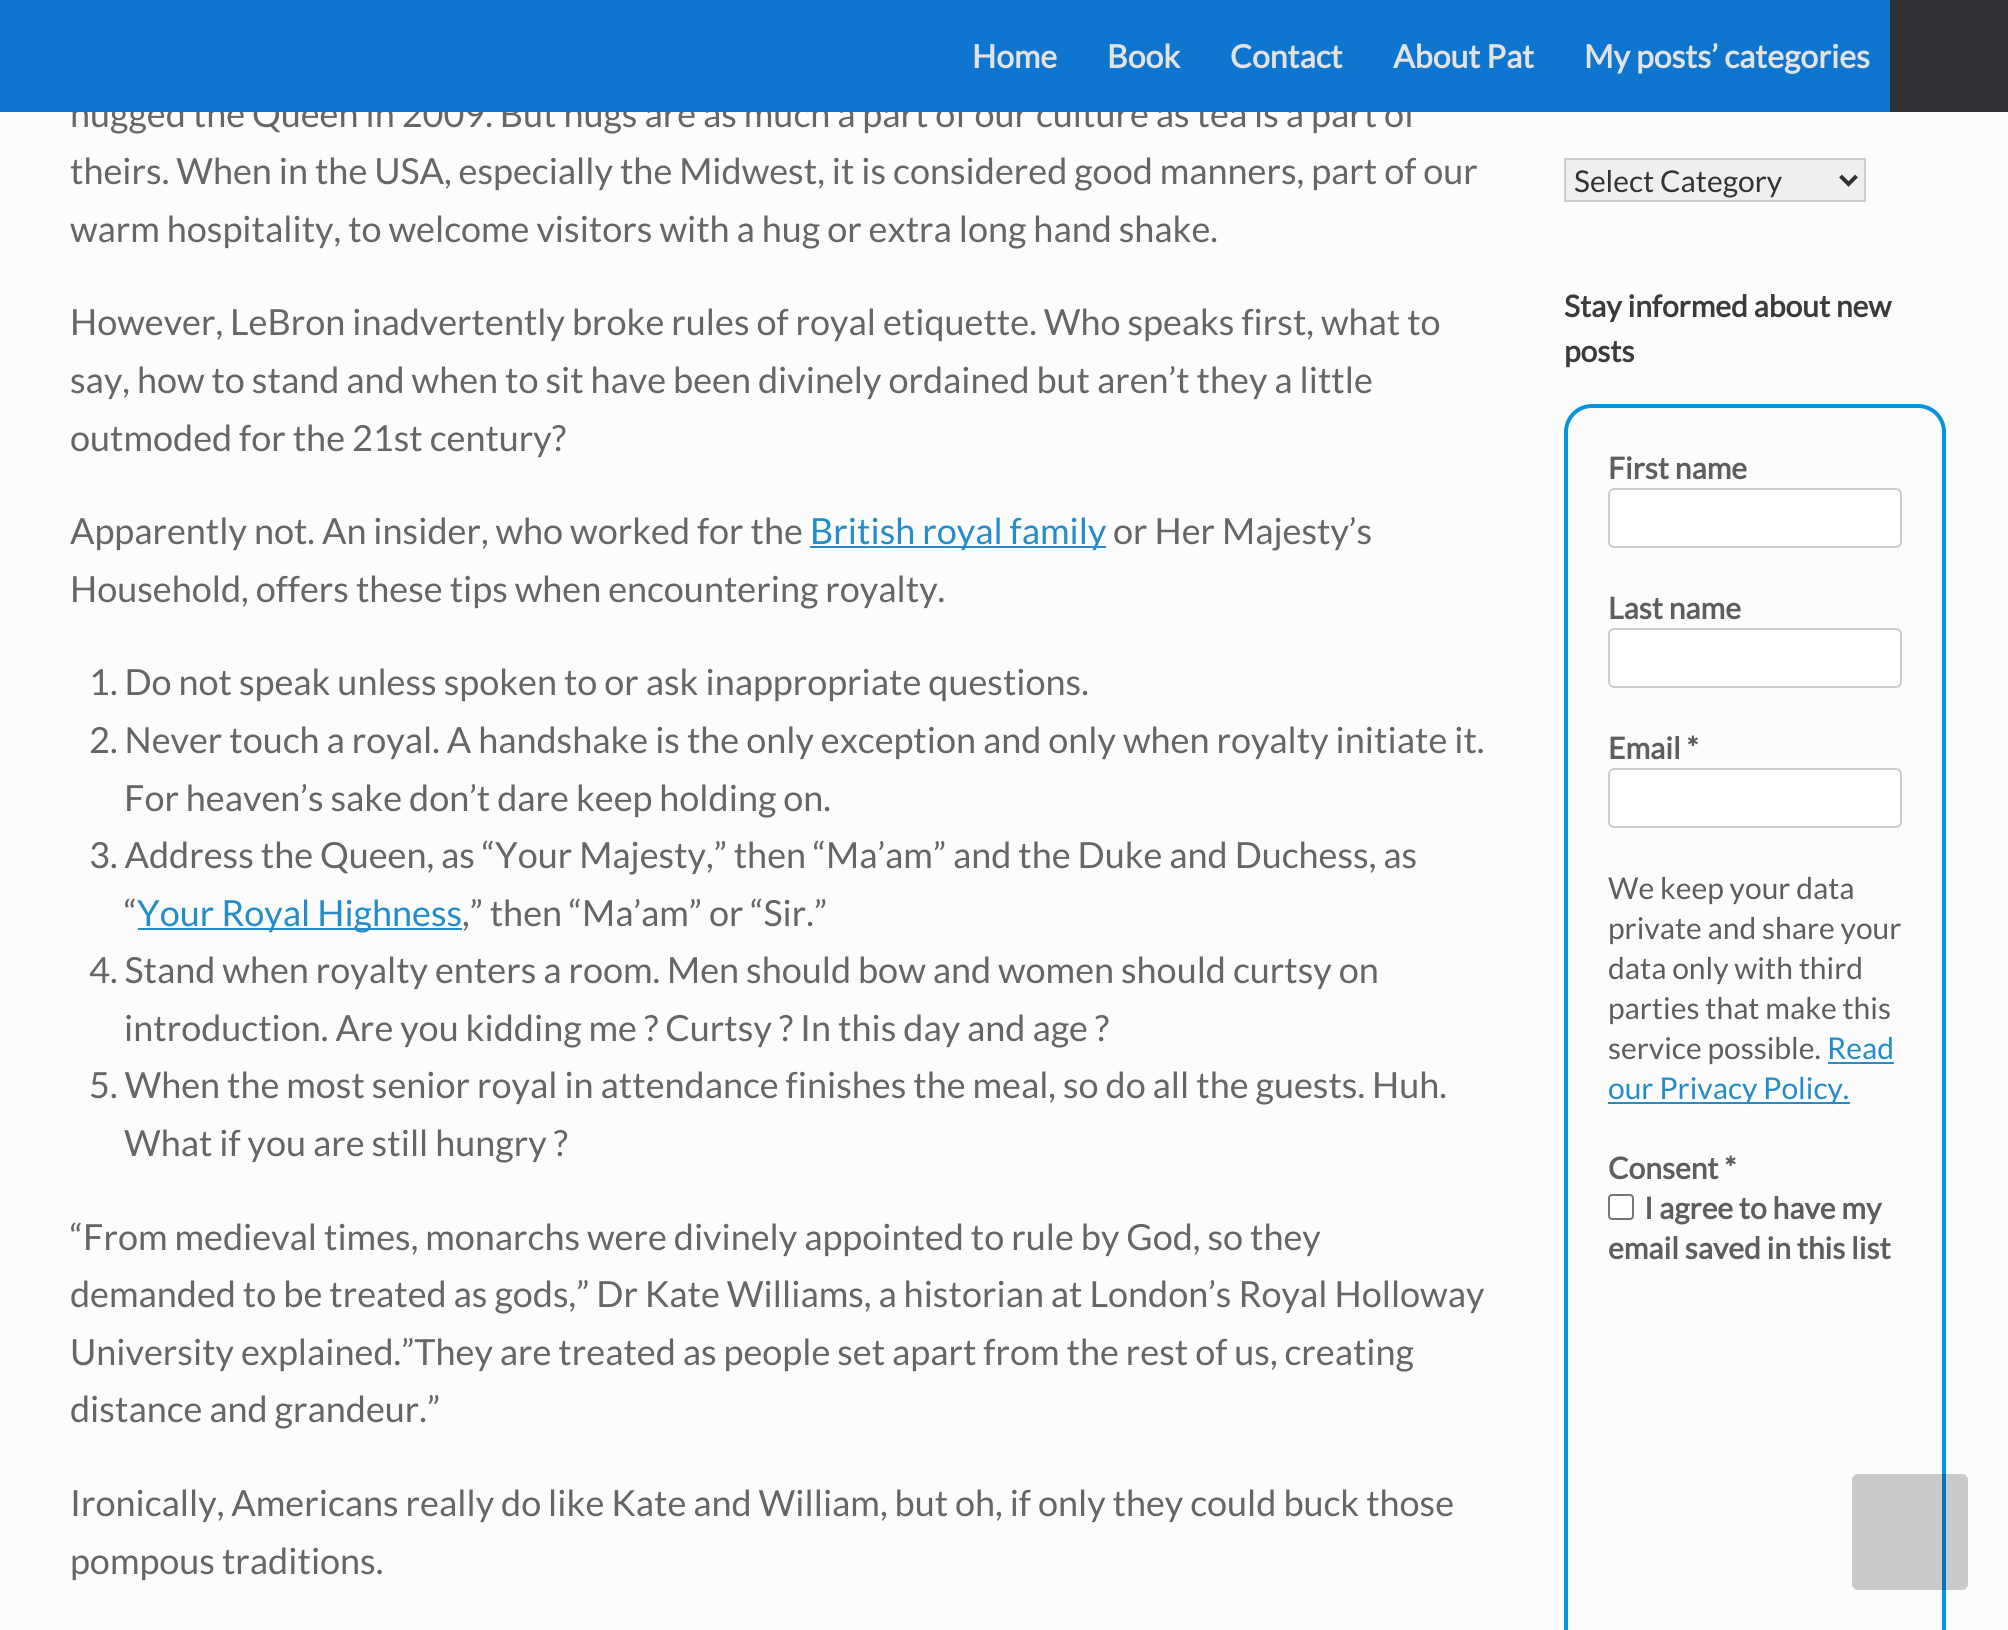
import math
import cairo

surface = cairo.ImageSurface(cairo.Format.RGB24, 2008, 1630)
ctx = cairo.Context(surface)
options = cairo.FontOptions()
options.set_hint_metrics(cairo.HintMetrics.OFF)
options.set_hint_style(cairo.HintStyle.NONE)
ctx.set_font_options(options)
ctx.set_miter_limit(4)


def ink(r, g, b):
    ctx.set_source_rgb(r / 255, g / 255, b / 255)


def write(x, y, s, family, size, color, bold=False, italic=False):
    ctx.select_font_face(family, cairo.FontSlant.ITALIC if italic else cairo.FontSlant.NORMAL, cairo.FontWeight.BOLD if bold else cairo.FontWeight.NORMAL)
    ctx.set_font_size(size)
    ink(*color)
    ctx.move_to(x, y)
    ctx.show_text(s)


def block(x, y, w, h, *color):
    ink(*color)
    ctx.rectangle(x, y, w, h)
    ctx.fill()


def round_path(x, y, w, h, r):
    ctx.new_sub_path()
    for i, (u, v) in enumerate([(x + w - r, y + h - r), (x + r, y + h - r), (x + r, y + r), (x + w - r, y + r)]):
        ctx.arc(u, v, r, i * math.pi / 2, (i + 1) * math.pi / 2)
    ctx.close_path()


s1 = dict(family="Lato", size=36, color=(102, 102, 102))
s2 = dict(family="Lato", size=32, color=(226, 226, 226), bold=True)
s3 = dict(family="Lato", size=36, color=(36, 140, 200))
s4 = dict(family="Lato", size=30, color=(51, 51, 51))
s5 = dict(family="Lato", size=30, color=(59, 59, 59), bold=True)
s6 = dict(family="Lato", size=30, color=(94, 94, 94), bold=True)
s7 = dict(family="Lato", size=30, color=(94, 94, 94))
s8 = dict(family="Lato", size=30, color=(36, 140, 200))

ink(252, 252, 252)
ctx.paint()
write(70, 127, "hugged the Queen in 2009. But hugs are as much a part of our culture as tea is a part of", **s1)
block(0, 0, 1890, 112, 15, 118, 208)
write(972, 68, "Home", **s2)
write(1107, 68, "Book", **s2)
write(1230, 68, "Contact", **s2)
write(1393, 68, "About Pat", **s2)
write(1584, 68, "My posts’ categories", **s2)
block(1890, 0, 118, 112, 48, 49, 52)
write(70, 184, "theirs. When in the USA, especially the Midwest, it is considered good manners, part of our", **s1)
write(70, 242, "warm hospitality, to welcome visitors with a hug or extra long hand shake.", **s1)
write(70, 335, "However, LeBron inadvertently broke rules of royal etiquette. Who speaks first, what to", **s1)
write(70, 393, "say, how to stand and when to sit have been divinely ordained but aren’t they a little", **s1)
write(70, 451, "outmoded for the 21st century?", **s1)
write(70, 544, "Apparently not. An insider, who worked for the", **s1)
block(810, 546, 296, 2, 36, 140, 200)
write(810, 544, "British royal family", **s3)
write(1113, 544, "or Her Majesty’s", **s1)
write(70, 602, "Household, offers these tips when encountering royalty.", **s1)
write(89, 695, "1. Do not speak unless spoken to or ask inappropriate questions.", **s1)
write(89, 753, "2. Never touch a royal. A handshake is the only exception and only when royalty initiate it.", **s1)
write(124, 811, "For heaven’s sake don’t dare keep holding on.", **s1)
write(89, 868, "3. Address the Queen, as “Your Majesty,” then “Ma’am” and the Duke and Duchess, as", **s1)
write(124, 926, "“", **s1)
block(138, 928, 324, 2, 36, 140, 200)
write(137, 926, "Your Royal Highness", **s3)
write(462, 926, ",” then “Ma’am” or “Sir.”", **s1)
write(89, 983, "4. Stand when royalty enters a room. Men should bow and women should curtsy on", **s1)
write(124, 1041, "introduction. Are you kidding me ? Curtsy ? In this day and age ?", **s1)
write(89, 1098, "5. When the most senior royal in attendance finishes the meal, so do all the guests. Huh.", **s1)
write(124, 1156, "What if you are still hungry ?", **s1)
write(70, 1250, "“From medieval times, monarchs were divinely appointed to rule by God, so they", **s1)
write(70, 1307, "demanded to be treated as gods,” Dr Kate Williams, a historian at London’s Royal Holloway", **s1)
write(70, 1365, "University explained.”They are treated as people set apart from the rest of us, creating", **s1)
write(70, 1422, "distance and grandeur.”", **s1)
write(70, 1516, "Ironically, Americans really do like Kate and William, but oh, if only they could buck those", **s1)
write(70, 1574, "pompous traditions.", **s1)
ink(239, 239, 239)
ctx.rectangle(1565, 159, 300, 42)
ctx.fill_preserve()
ink(204, 204, 204)
ctx.stroke()
ctx.new_path()
ctx.move_to(1840.5, 176)
ctx.line_to(1848.5, 184)
ctx.line_to(1856.5, 176)
ink(51, 51, 51)
ctx.set_line_width(4)
ctx.stroke()
write(1574, 192, "Select Category", **s4)
write(1564, 317, "Stay informed about new", **s5)
write(1564, 362, "posts", **s5)
round_path(1566, 406, 378, 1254, 26)
ink(6, 147, 227)
ctx.stroke()
write(1608, 479, "First name", **s6)
ink(255, 255, 255)
round_path(1609, 489, 292, 58, 5)
ctx.fill_preserve()
ink(204, 204, 204)
ctx.set_line_width(2)
ctx.stroke()
write(1608, 619, "Last name", **s6)
ink(255, 255, 255)
round_path(1609, 629, 292, 58, 5)
ctx.fill_preserve()
ink(204, 204, 204)
ctx.stroke()
write(1608, 759, "Email *", **s6)
ink(255, 255, 255)
round_path(1609, 769, 292, 58, 5)
ctx.fill_preserve()
ink(204, 204, 204)
ctx.stroke()
write(1608, 899, "We keep your data", **s7)
write(1608, 939, "private and share your", **s7)
write(1608, 979, "data only with third", **s7)
write(1608, 1019, "parties that make this", **s7)
write(1608, 1059, "service possible.", **s7)
write(1827, 1059, "Read", **s8)
block(1828, 1062, 66, 2, 36, 140, 200)
block(1608, 1102, 242, 2, 36, 140, 200)
write(1608, 1099, "our Privacy Policy.", **s8)
write(1608, 1179, "Consent *", **s6)
ink(255, 255, 255)
round_path(1609, 1195, 24, 24, 3)
ctx.fill_preserve()
ink(118, 118, 118)
ctx.stroke()
write(1644, 1219, "I agree to have my", **s6)
write(1608, 1259, "email saved in this list", **s6)
ctx.set_source_rgba(0, 0, 0, 0.2)
round_path(1852, 1474, 116, 116, 6)
ctx.fill()
surface.write_to_png("screenshot.png")
